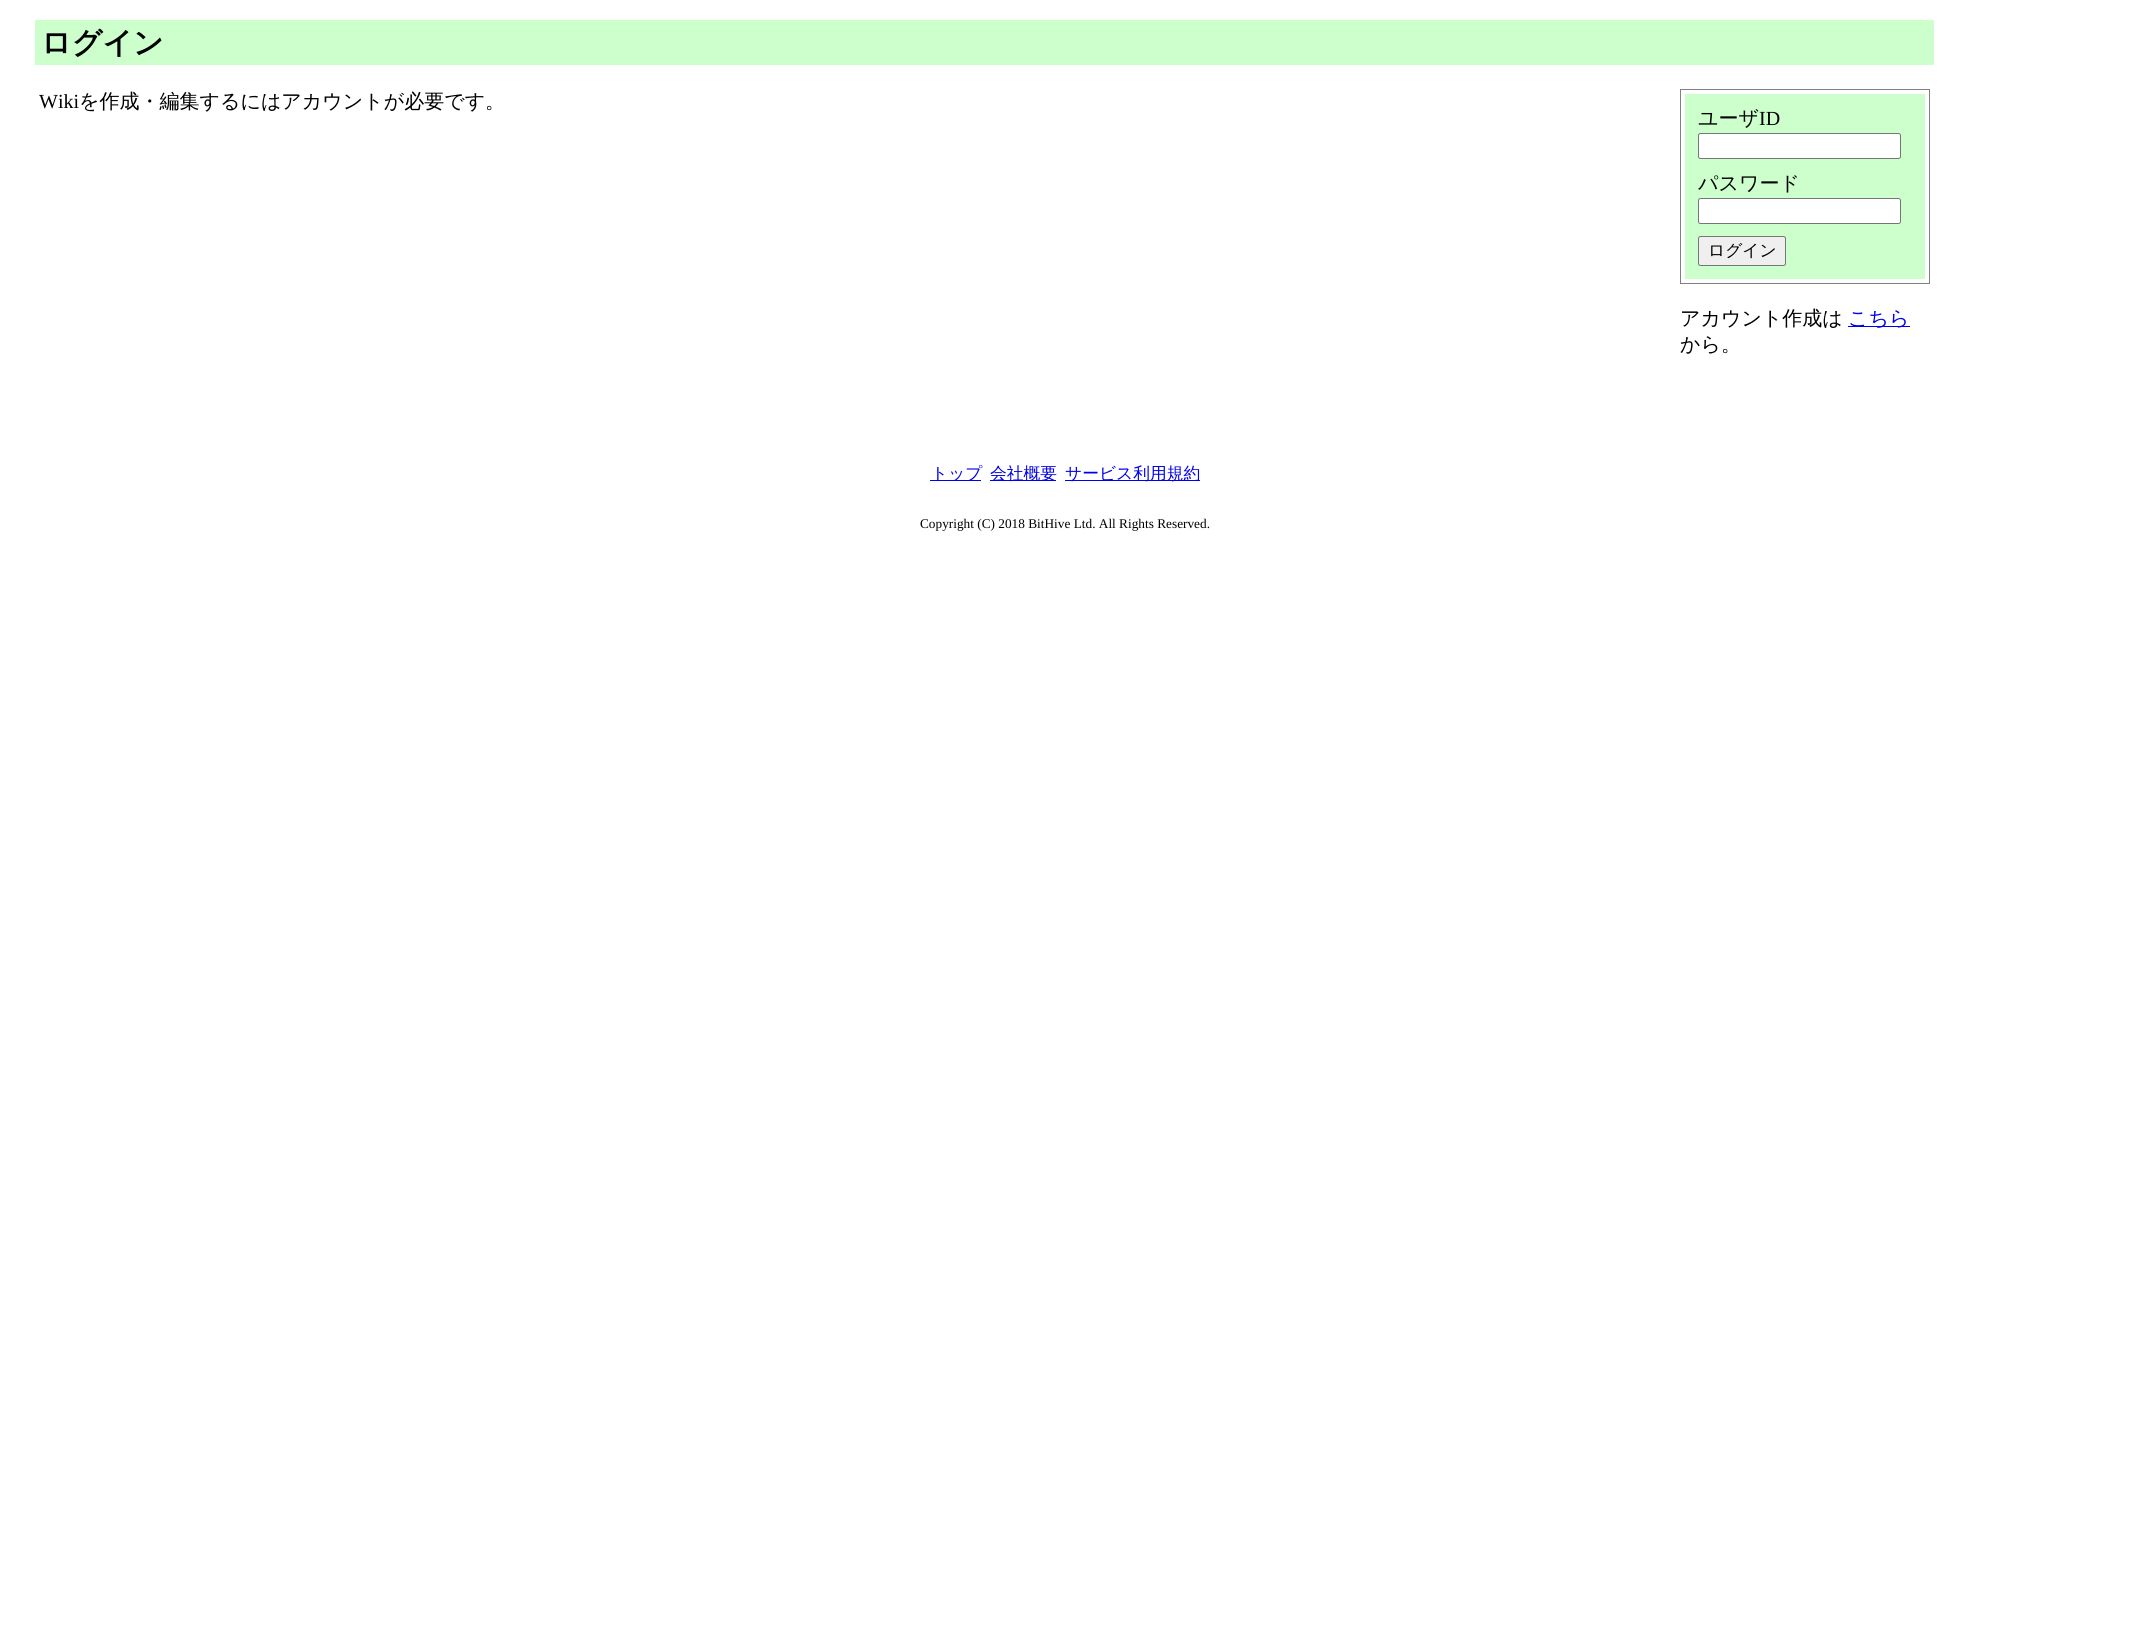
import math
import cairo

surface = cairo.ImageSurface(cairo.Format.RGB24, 2130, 1633)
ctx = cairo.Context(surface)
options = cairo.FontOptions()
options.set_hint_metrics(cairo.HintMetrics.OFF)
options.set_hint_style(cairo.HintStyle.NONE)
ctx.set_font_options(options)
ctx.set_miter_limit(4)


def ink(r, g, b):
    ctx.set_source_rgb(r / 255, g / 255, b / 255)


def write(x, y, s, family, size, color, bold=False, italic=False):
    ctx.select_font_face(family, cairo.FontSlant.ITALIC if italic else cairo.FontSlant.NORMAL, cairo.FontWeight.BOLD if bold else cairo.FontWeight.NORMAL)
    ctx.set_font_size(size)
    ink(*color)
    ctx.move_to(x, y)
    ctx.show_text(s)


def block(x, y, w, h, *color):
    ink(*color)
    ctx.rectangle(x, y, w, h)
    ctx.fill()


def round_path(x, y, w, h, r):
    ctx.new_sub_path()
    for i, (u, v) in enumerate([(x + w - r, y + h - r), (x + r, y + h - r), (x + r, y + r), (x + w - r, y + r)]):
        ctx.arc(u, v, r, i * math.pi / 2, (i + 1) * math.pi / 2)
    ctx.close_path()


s1 = dict(family="WenQuanYi Zen Hei", size=30, color=(0, 0, 0), bold=True)
s2 = dict(family="Liberation Serif", size=20, color=(0, 0, 0))
s3 = dict(family="WenQuanYi Zen Hei Medium", size=20, color=(0, 0, 0))
s4 = dict(family="WenQuanYi Zen Hei Medium", size=16.75, color=(0, 0, 0))
s5 = dict(family="WenQuanYi Zen Hei Medium", size=20, color=(0, 0, 238))
s6 = dict(family="WenQuanYi Zen Hei Medium", size=16.75, color=(0, 0, 238))
s7 = dict(family="Liberation Serif", size=13.3, color=(0, 0, 0))

ink(255, 255, 255)
ctx.paint()
block(35, 20, 1899, 45, 204, 255, 204)
write(41, 53, "ログイン", **s1)
write(39, 108, "Wiki", **s2)
write(79, 108, "を作成・編集するにはアカウントが必要です。", **s3)
ctx.rectangle(1680.5, 89.5, 249, 194)
ink(128, 128, 128)
ctx.set_line_width(1)
ctx.stroke()
block(1685, 94, 240, 185, 204, 255, 204)
write(1698, 125, "ユーザ", **s3)
write(1759, 125, "ID", **s2)
ink(255, 255, 255)
round_path(1698.5, 133.5, 202, 25, 2)
ctx.fill_preserve()
ink(118, 118, 118)
ctx.stroke()
write(1698, 190, "パスワード", **s3)
ink(255, 255, 255)
round_path(1698.5, 198.5, 202, 25, 2)
ctx.fill_preserve()
ink(118, 118, 118)
ctx.stroke()
ink(239, 239, 239)
round_path(1698.5, 236.5, 87, 29, 2)
ctx.fill_preserve()
ink(118, 118, 118)
ctx.stroke()
write(1708, 256, "ログイン", **s4)
write(1680, 325, "アカウント作成は", **s3)
block(1848, 326, 62, 1, 0, 0, 238)
write(1848, 325, "こちら", **s5)
write(1680, 351, "から。", **s3)
block(930, 480, 51, 1, 0, 0, 238)
write(931, 479, "トップ", **s6)
block(990, 480, 66, 1, 0, 0, 238)
write(990, 479, "会社概要", **s6)
block(1065, 480, 135, 1, 0, 0, 238)
write(1065, 479, "サービス利用規約", **s6)
write(920, 528, "Copyright (C) 2018 BitHive Ltd. All Rights Reserved.", **s7)
surface.write_to_png("screenshot.png")
